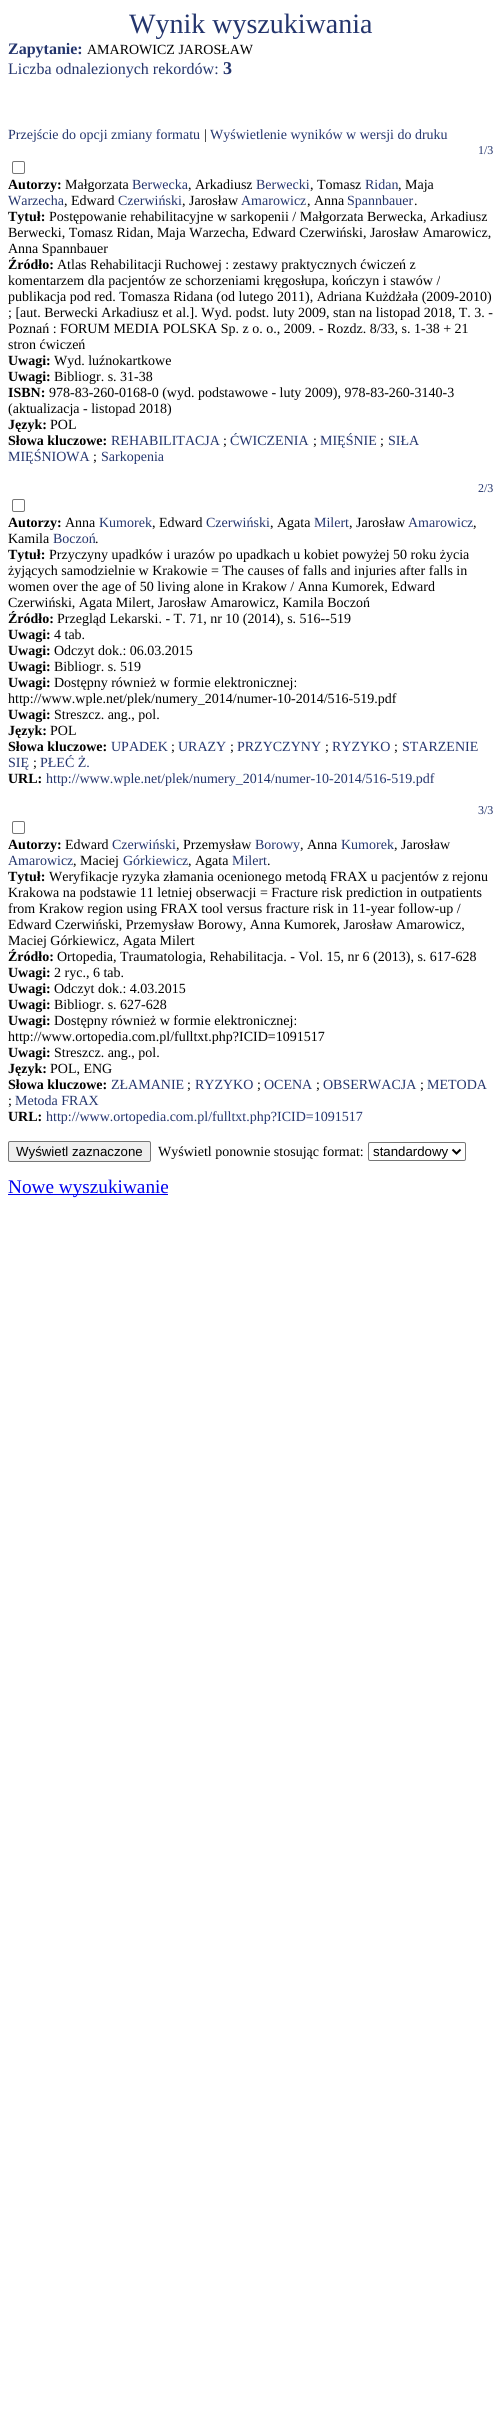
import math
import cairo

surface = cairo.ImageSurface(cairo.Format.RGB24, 501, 2410)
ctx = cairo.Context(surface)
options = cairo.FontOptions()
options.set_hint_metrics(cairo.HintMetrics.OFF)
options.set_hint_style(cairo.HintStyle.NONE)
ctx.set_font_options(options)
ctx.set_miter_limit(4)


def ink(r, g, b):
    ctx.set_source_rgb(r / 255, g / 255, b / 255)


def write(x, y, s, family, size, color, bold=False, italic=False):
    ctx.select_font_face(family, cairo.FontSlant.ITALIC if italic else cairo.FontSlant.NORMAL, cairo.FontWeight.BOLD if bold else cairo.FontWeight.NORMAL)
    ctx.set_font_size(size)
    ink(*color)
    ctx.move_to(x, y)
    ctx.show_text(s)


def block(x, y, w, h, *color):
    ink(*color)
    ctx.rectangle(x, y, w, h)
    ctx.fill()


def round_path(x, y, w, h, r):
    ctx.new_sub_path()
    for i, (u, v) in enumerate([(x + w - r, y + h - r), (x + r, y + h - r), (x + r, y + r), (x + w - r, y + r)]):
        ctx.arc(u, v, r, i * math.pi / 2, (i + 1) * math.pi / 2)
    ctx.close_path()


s1 = dict(family="Liberation Serif", size=28, color=(36, 53, 109))
s2 = dict(family="Liberation Serif", size=16, color=(36, 53, 109), bold=True)
s3 = dict(family="Liberation Serif", size=14, color=(0, 0, 0))
s4 = dict(family="Liberation Serif", size=16, color=(36, 53, 109))
s5 = dict(family="Liberation Serif", size=18, color=(36, 53, 109), bold=True)
s6 = dict(family="Liberation Serif", size=14, color=(36, 53, 109))
s7 = dict(family="Liberation Serif", size=12, color=(36, 53, 109))
s8 = dict(family="Liberation Serif", size=14, color=(0, 0, 0), bold=True)
s9 = dict(family="Liberation Sans", size=13.25, color=(0, 0, 0))
s10 = dict(family="Liberation Serif", size=19.25, color=(0, 0, 238))

ink(255, 255, 255)
ctx.paint()
write(129, 33, "Wynik wyszukiwania", **s1)
write(8, 54, "Zapytanie:", **s2)
write(87, 54, "AMAROWICZ JAROSŁAW", **s3)
write(8, 74, "Liczba odnalezionych rekordów:", **s4)
write(223, 74, "3", **s5)
write(8, 139, "Przejście do opcji zmiany formatu", **s6)
write(204, 139, "|", **s3)
write(210, 139, "Wyświetlenie wyników w wersji do druku", **s6)
write(478, 154, "1/3", **s7)
round_path(12.5, 161.5, 12, 12, 1.5)
ink(118, 118, 118)
ctx.set_line_width(1)
ctx.stroke()
write(8, 189, "Autorzy:", **s8)
write(65, 189, "Małgorzata", **s3)
write(132, 189, "Berwecka", **s6)
write(188, 189, ", Arkadiusz", **s3)
write(256, 189, "Berwecki", **s6)
write(310, 189, ", Tomasz", **s3)
write(365, 189, "Ridan", **s6)
write(398, 189, ", Maja", **s3)
write(8, 205, "Warzecha", **s6)
write(64, 205, ", Edward", **s3)
write(118, 205, "Czerwiński", **s6)
write(182, 205, ", Jarosław", **s3)
write(241, 205, "Amarowicz", **s6)
write(307, 205, ", Anna", **s3)
write(347, 205, "Spannbauer", **s6)
write(414, 205, ".", **s3)
write(8, 221, "Tytuł:", **s8)
write(49, 221, "Postępowanie rehabilitacyjne w sarkopenii / Małgorzata Berwecka, Arkadiusz", **s3)
write(8, 237, "Berwecki, Tomasz Ridan, Maja Warzecha, Edward Czerwiński, Jarosław Amarowicz,", **s3)
write(8, 253, "Anna Spannbauer", **s3)
write(8, 269, "Źródło:", **s8)
write(57, 269, "Atlas Rehabilitacji Ruchowej : zestawy praktycznych ćwiczeń z", **s3)
write(8, 285, "komentarzem dla pacjentów ze schorzeniami kręgosłupa, kończyn i stawów /", **s3)
write(8, 301, "publikacja pod red. Tomasza Ridana (od lutego 2011), Adriana Kużdżała (2009-2010)", **s3)
write(8, 317, "; [aut. Berwecki Arkadiusz et al.]. Wyd. podst. luty 2009, stan na listopad 2018, T. 3. -", **s3)
write(8, 333, "Poznań : FORUM MEDIA POLSKA Sp. z o. o., 2009. - Rozdz. 8/33, s. 1-38 + 21", **s3)
write(8, 349, "stron ćwiczeń", **s3)
write(8, 365, "Uwagi:", **s8)
write(54, 365, "Wyd. luźnokartkowe", **s3)
write(8, 381, "Uwagi:", **s8)
write(54, 381, "Bibliogr. s. 31-38", **s3)
write(8, 397, "ISBN:", **s8)
write(49, 397, "978-83-260-0168-0 (wyd. podstawowe - luty 2009), 978-83-260-3140-3", **s3)
write(8, 413, "(aktualizacja - listopad 2018)", **s3)
write(8, 429, "Język:", **s8)
write(50, 429, "POL", **s3)
write(8, 445, "Słowa kluczowe:", **s8)
write(111, 445, "REHABILITACJA", **s6)
write(223, 445, ";", **s3)
write(230, 445, "ĆWICZENIA", **s6)
write(313, 445, ";", **s3)
write(320, 445, "MIĘŚNIE", **s6)
write(380, 445, ";", **s3)
write(388, 445, "SIŁA", **s6)
write(8, 461, "MIĘŚNIOWA", **s6)
write(93, 461, ";", **s3)
write(101, 461, "Sarkopenia", **s6)
write(478, 492, "2/3", **s7)
round_path(12.5, 499.5, 12, 12, 1.5)
ink(118, 118, 118)
ctx.stroke()
write(8, 527, "Autorzy:", **s8)
write(65, 527, "Anna", **s3)
write(99, 527, "Kumorek", **s6)
write(152, 527, ", Edward", **s3)
write(206, 527, "Czerwiński", **s6)
write(270, 527, ", Agata", **s3)
write(314, 527, "Milert", **s6)
write(349, 527, ", Jarosław", **s3)
write(408, 527, "Amarowicz", **s6)
write(473, 527, ",", **s3)
write(8, 543, "Kamila", **s3)
write(53, 543, "Boczoń", **s6)
write(95, 543, ".", **s3)
write(8, 559, "Tytuł:", **s8)
write(49, 559, "Przyczyny upadków i urazów po upadkach u kobiet powyżej 50 roku życia", **s3)
write(8, 575, "żyjących samodzielnie w Krakowie = The causes of falls and injuries after falls in", **s3)
write(8, 591, "women over the age of 50 living alone in Krakow / Anna Kumorek, Edward", **s3)
write(8, 607, "Czerwiński, Agata Milert, Jarosław Amarowicz, Kamila Boczoń", **s3)
write(8, 623, "Źródło:", **s8)
write(57, 623, "Przegląd Lekarski. - T. 71, nr 10 (2014), s. 516--519", **s3)
write(8, 639, "Uwagi:", **s8)
write(54, 639, "4 tab.", **s3)
write(8, 655, "Uwagi:", **s8)
write(54, 655, "Odczyt dok.: 06.03.2015", **s3)
write(8, 671, "Uwagi:", **s8)
write(54, 671, "Bibliogr. s. 519", **s3)
write(8, 687, "Uwagi:", **s8)
write(54, 687, "Dostępny również w formie elektronicznej:", **s3)
write(8, 703, "http://www.wple.net/plek/numery_2014/numer-10-2014/516-519.pdf", **s3)
write(8, 719, "Uwagi:", **s8)
write(54, 719, "Streszcz. ang., pol.", **s3)
write(8, 735, "Język:", **s8)
write(50, 735, "POL", **s3)
write(8, 751, "Słowa kluczowe:", **s8)
write(111, 751, "UPADEK", **s6)
write(171, 751, ";", **s3)
write(178, 751, "URAZY", **s6)
write(230, 751, ";", **s3)
write(237, 751, "PRZYCZYNY", **s6)
write(325, 751, ";", **s3)
write(332, 751, "RYZYKO", **s6)
write(394, 751, ";", **s3)
write(402, 751, "STARZENIE", **s6)
write(8, 767, "SIĘ", **s6)
write(33, 767, ";", **s3)
write(40, 767, "PŁEĆ Ż.", **s6)
write(8, 783, "URL:", **s8)
write(46, 783, "http://www.wple.net/plek/numery_2014/numer-10-2014/516-519.pdf", **s6)
write(478, 814, "3/3", **s7)
round_path(12.5, 821.5, 12, 12, 1.5)
ink(118, 118, 118)
ctx.stroke()
write(8, 849, "Autorzy:", **s8)
write(65, 849, "Edward", **s3)
write(112, 849, "Czerwiński", **s6)
write(176, 849, ", Przemysław", **s3)
write(255, 849, "Borowy", **s6)
write(300, 849, ", Anna", **s3)
write(341, 849, "Kumorek", **s6)
write(394, 849, ", Jarosław", **s3)
write(8, 865, "Amarowicz", **s6)
write(73, 865, ", Maciej", **s3)
write(123, 865, "Górkiewicz", **s6)
write(188, 865, ", Agata", **s3)
write(232, 865, "Milert", **s6)
write(267, 865, ".", **s3)
write(8, 881, "Tytuł:", **s8)
write(49, 881, "Weryfikacje ryzyka złamania ocenionego metodą FRAX u pacjentów z rejonu", **s3)
write(8, 897, "Krakowa na podstawie 11 letniej obserwacji = Fracture risk prediction in outpatients", **s3)
write(8, 913, "from Krakow region using FRAX tool versus fracture risk in 11-year follow-up /", **s3)
write(8, 929, "Edward Czerwiński, Przemysław Borowy, Anna Kumorek, Jarosław Amarowicz,", **s3)
write(8, 945, "Maciej Górkiewicz, Agata Milert", **s3)
write(8, 961, "Źródło:", **s8)
write(57, 961, "Ortopedia, Traumatologia, Rehabilitacja. - Vol. 15, nr 6 (2013), s. 617-628", **s3)
write(8, 977, "Uwagi:", **s8)
write(54, 977, "2 ryc., 6 tab.", **s3)
write(8, 993, "Uwagi:", **s8)
write(54, 993, "Odczyt dok.: 4.03.2015", **s3)
write(8, 1009, "Uwagi:", **s8)
write(54, 1009, "Bibliogr. s. 627-628", **s3)
write(8, 1025, "Uwagi:", **s8)
write(54, 1025, "Dostępny również w formie elektronicznej:", **s3)
write(8, 1041, "http://www.ortopedia.com.pl/fulltxt.php?ICID=1091517", **s3)
write(8, 1057, "Uwagi:", **s8)
write(54, 1057, "Streszcz. ang., pol.", **s3)
write(8, 1073, "Język:", **s8)
write(50, 1073, "POL, ENG", **s3)
write(8, 1089, "Słowa kluczowe:", **s8)
write(111, 1089, "ZŁAMANIE", **s6)
write(187, 1089, ";", **s3)
write(195, 1089, "RYZYKO", **s6)
write(257, 1089, ";", **s3)
write(264, 1089, "OCENA", **s6)
write(316, 1089, ";", **s3)
write(323, 1089, "OBSERWACJA", **s6)
write(420, 1089, ";", **s3)
write(427, 1089, "METODA", **s6)
write(8, 1105, ";", **s3)
write(15, 1105, "Metoda FRAX", **s6)
write(8, 1121, "URL:", **s8)
write(46, 1121, "http://www.ortopedia.com.pl/fulltxt.php?ICID=1091517", **s6)
ink(239, 239, 239)
round_path(8.5, 1141.5, 142, 20, 1.5)
ctx.fill_preserve()
ink(118, 118, 118)
ctx.stroke()
write(16, 1156, "Wyświetl zaznaczone", **s9)
write(158, 1156, "Wyświetl ponownie stosując format:", **s3)
round_path(368.5, 1142.5, 97, 18, 1.5)
ink(118, 118, 118)
ctx.stroke()
ctx.new_path()
ctx.move_to(452.5, 1149.5)
ctx.line_to(456.5, 1153.5)
ctx.line_to(460.5, 1149.5)
ink(0, 0, 0)
ctx.set_line_width(2)
ctx.stroke()
write(373, 1156, "standardowy", **s9)
block(8, 1194, 160, 1, 0, 0, 238)
write(8, 1193, "Nowe wyszukiwanie", **s10)
surface.write_to_png("screenshot.png")
